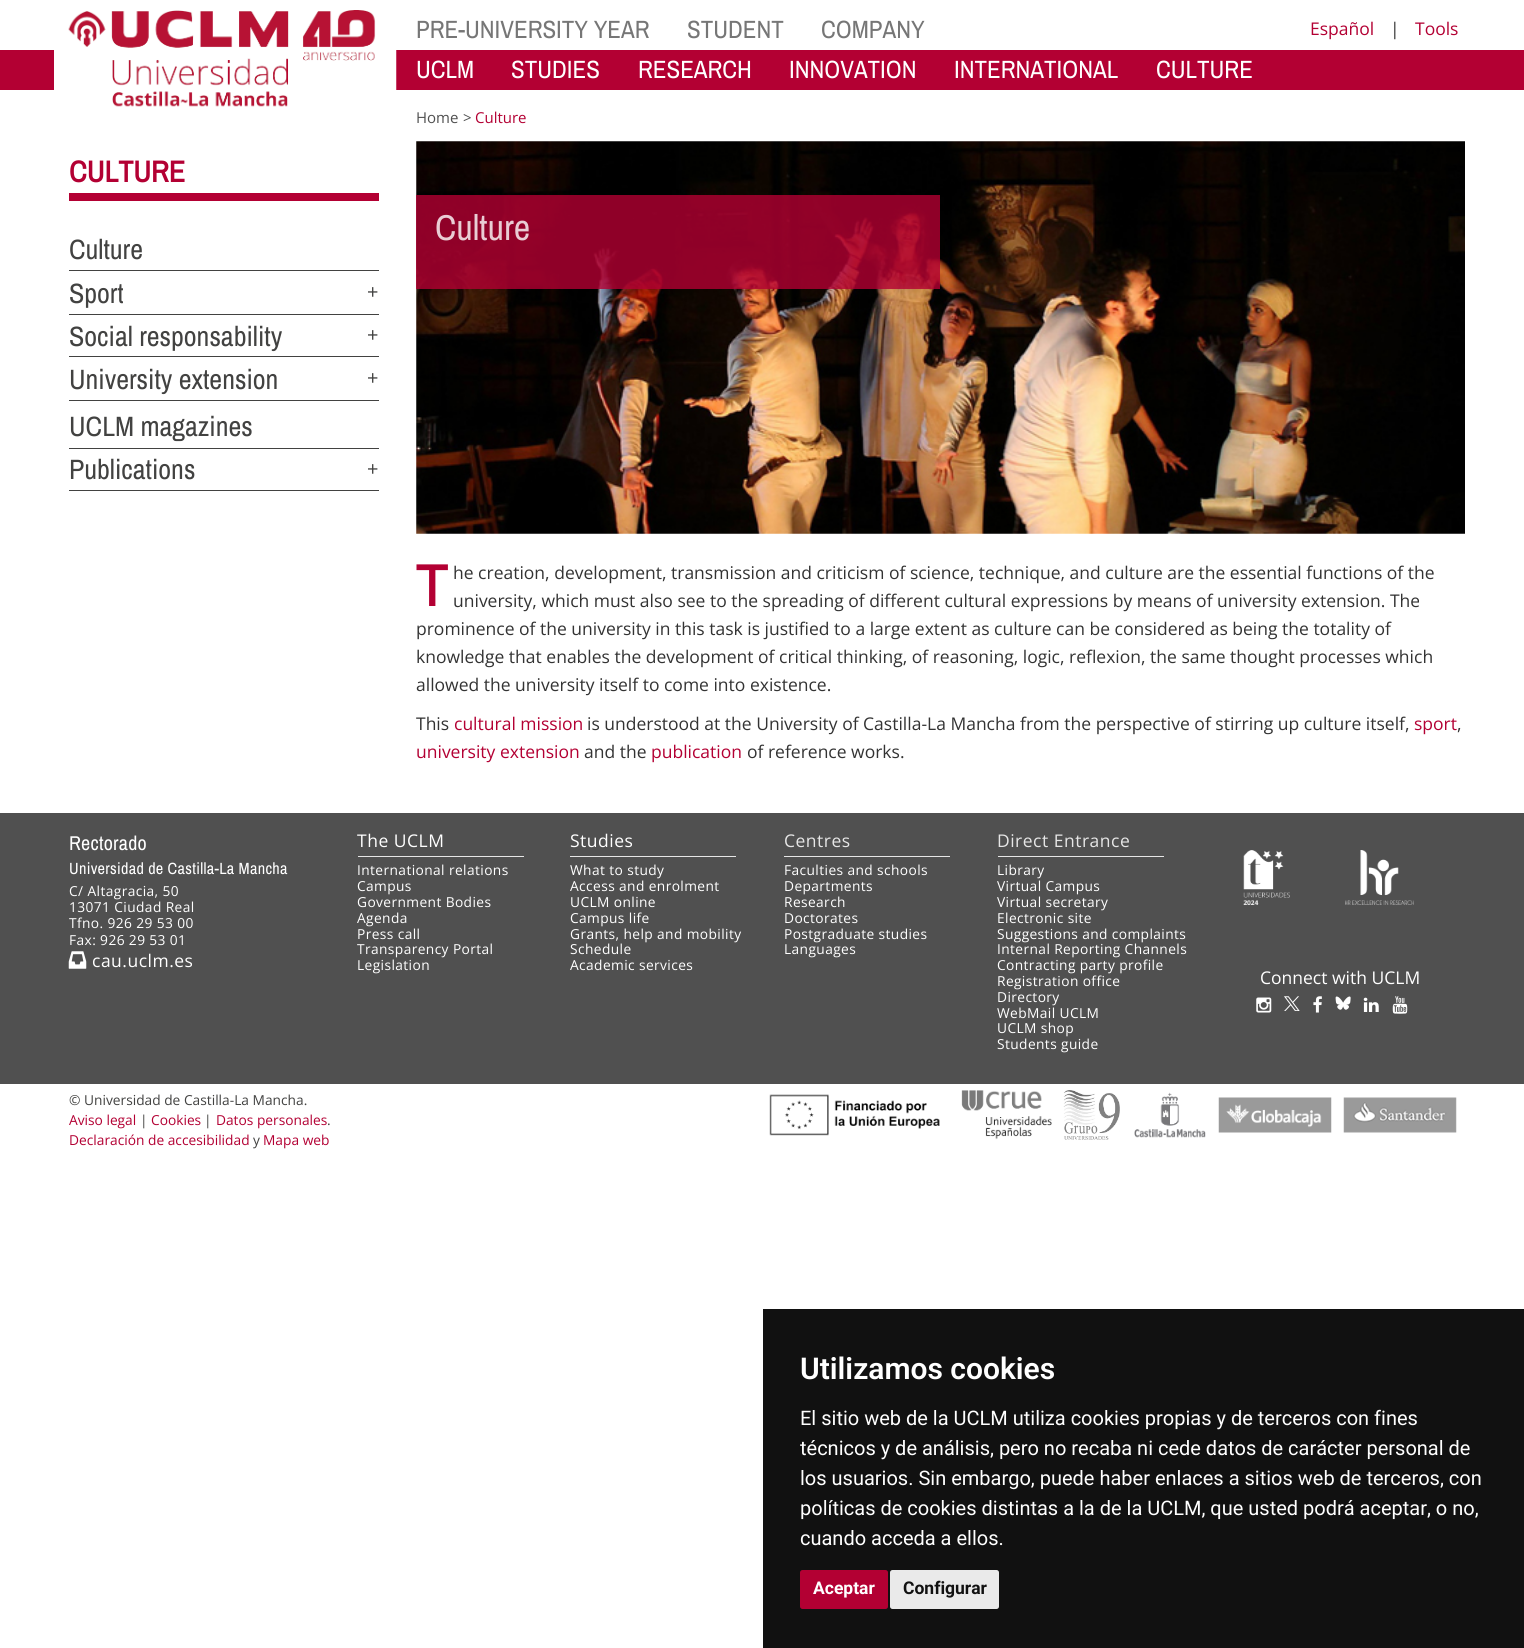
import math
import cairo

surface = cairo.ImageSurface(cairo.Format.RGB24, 1524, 1648)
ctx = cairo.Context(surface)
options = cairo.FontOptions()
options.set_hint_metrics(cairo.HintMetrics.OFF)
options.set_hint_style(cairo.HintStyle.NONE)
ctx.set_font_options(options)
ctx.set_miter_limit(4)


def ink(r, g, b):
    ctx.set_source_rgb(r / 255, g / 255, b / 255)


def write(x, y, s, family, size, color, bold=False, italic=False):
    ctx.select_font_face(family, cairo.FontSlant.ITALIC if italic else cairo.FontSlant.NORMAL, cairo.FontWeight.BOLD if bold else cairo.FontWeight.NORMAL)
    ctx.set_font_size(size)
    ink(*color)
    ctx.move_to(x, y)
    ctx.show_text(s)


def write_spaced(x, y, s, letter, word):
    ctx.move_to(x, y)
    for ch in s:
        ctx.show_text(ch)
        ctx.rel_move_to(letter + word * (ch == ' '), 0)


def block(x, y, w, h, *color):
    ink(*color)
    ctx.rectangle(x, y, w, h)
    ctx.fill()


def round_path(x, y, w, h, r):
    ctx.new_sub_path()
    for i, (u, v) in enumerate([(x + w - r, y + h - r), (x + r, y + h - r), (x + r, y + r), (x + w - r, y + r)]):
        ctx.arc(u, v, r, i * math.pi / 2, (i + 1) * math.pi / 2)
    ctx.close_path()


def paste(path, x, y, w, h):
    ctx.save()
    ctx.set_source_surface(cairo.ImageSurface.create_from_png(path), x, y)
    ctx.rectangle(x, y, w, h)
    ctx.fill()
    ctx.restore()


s1 = dict(family="Archivo Narrow", size=25, color=(118, 118, 118))
s2 = dict(family="Open Sans", size=17.5, color=(179, 0, 51))
s3 = dict(family="Open Sans", size=17.5, color=(51, 51, 51))
s4 = dict(family="Archivo Narrow", size=25, color=(255, 255, 255))
s5 = dict(family="Archivo Narrow", size=30, color=(179, 0, 51), bold=True)
s6 = dict(family="Archivo Narrow", size=28, color=(66, 66, 65))
s7 = dict(family="Open Sans", size=20, color=(66, 66, 65))
s8 = dict(family="Open Sans", size=15, color=(80, 80, 80))
s9 = dict(family="Open Sans", size=15, color=(179, 0, 51))
s10 = dict(family="Archivo Narrow", size=36, color=(233, 204, 212))
s11 = dict(family="Open Sans", size=56, color=(179, 0, 51), bold=True)
s12 = dict(family="Open Sans", size=17.5, color=(255, 255, 255))
s13 = dict(family="Open Sans", size=13.75, color=(66, 66, 65))
s14 = dict(family="Open Sans", size=13.75, color=(179, 0, 51))
s15 = dict(family="Roboto SemiBold", size=30, color=(255, 255, 255))
s16 = dict(family="Roboto", size=20, color=(255, 255, 255))
s17 = dict(family="Roboto", size=17.5, color=(255, 255, 255), bold=True)
s18 = dict(family="Roboto", size=17.5, color=(17, 17, 17), bold=True)

ink(255, 255, 255)
ctx.paint()
block(0, 50, 1524, 40, 179, 0, 51)
block(54, 50, 15, 40, 255, 255, 255)
paste("pic1.png", 68, 10, 329, 97)
write(416, 38, "PRE-UNIVERSITY YEAR", **s1)
write(687, 38, "STUDENT", **s1)
write(821, 38, "COMPANY", **s1)
write(1310, 35, "Español", **s2)
write(1390, 35, "|", **s3)
write(1415, 35, "Tools", **s2)
write(416, 78, "UCLM", **s4)
write(511, 78, "STUDIES", **s4)
write(638, 78, "RESEARCH", **s4)
write(789, 78, "INNOVATION", **s4)
write(954, 78, "INTERNATIONAL", **s4)
write(1156, 78, "CULTURE", **s4)
block(69, 193, 310, 8, 179, 0, 51)
write(69, 182, "CULTURE", **s5)
block(69, 270, 310, 1, 66, 66, 65)
write(69, 259, "Culture", **s6)
block(69, 314, 310, 1, 66, 66, 65)
write(69, 303, "Sport", **s6)
write(367, 299, "+", **s7)
block(69, 356, 310, 1, 66, 66, 65)
write(69, 346, "Social responsability", **s6)
write(367, 342, "+", **s7)
block(69, 400, 310, 1, 66, 66, 65)
write(69, 389, "University extension", **s6)
write(367, 385, "+", **s7)
block(69, 448, 310, 1, 66, 66, 65)
write(69, 436, "UCLM magazines", **s6)
block(69, 490, 310, 1, 66, 66, 65)
write(69, 479, "Publications", **s6)
write(367, 476, "+", **s7)
write(416, 123, "Home", **s8)
write(463, 123, ">", **s8)
write(475, 123, "Culture", **s9)
paste("pic2.png", 416, 141, 1049, 393)
ctx.set_source_rgba(0.702, 0, 0.2, 0.8)
ctx.rectangle(416, 195, 524, 94)
ctx.fill()
write(435, 240, "Culture", **s10)
write(416, 606, "T", **s11)
write(453, 579, "he creation, development, transmission and criticism of science, technique, and culture are the essential functions of the", **s3)
write(453, 607, "university, which must also see to the spreading of different cultural expressions by means of university extension. The", **s3)
write(416, 635, "prominence of the university in this task is justified to a large extent as culture can be considered as being the totality of", **s3)
write(416, 663, "knowledge that enables the development of critical thinking, of reasoning, logic, reflexion, the same thought processes which", **s3)
write(416, 691, "allowed the university itself to come into existence.", **s3)
write(416, 730, "This", **s3)
write(454, 730, "cultural mission", **s2)
write(587, 730, "is understood at the University of Castilla-La Mancha from the perspective of stirring up culture itself,", **s3)
write(1414, 730, "sport", **s2)
write(1457, 730, ",", **s3)
write(416, 758, "university extension", **s2)
write(584, 758, "and the", **s3)
write(651, 758, "publication", **s2)
write(747, 758, "of reference works.", **s3)
block(0, 813, 1524, 271, 80, 80, 80)
ctx.select_font_face("Archivo Narrow")
ctx.set_font_size(20)
ink(255, 255, 255)
write_spaced(69, 850, "Rectorado", 0.25, 0)
ctx.set_font_size(16.25)
write_spaced(69, 874, "Universidad de Castilla-La Mancha", 0.3, 0)
ctx.select_font_face("Open Sans")
ctx.set_font_size(13.75)
write_spaced(69, 896, "C/ Altagracia, 50", 0.4, 0)
write_spaced(69, 912, "13071 Ciudad Real", 0.4, 0)
write_spaced(69, 928, "Tfno. 926 29 53 00", 0.4, 0)
write_spaced(69, 945, "Fax: 926 29 53 01", 0.4, 0)
paste("pic3.png", 68, 951, 19, 18)
ctx.set_font_size(17.5)
write_spaced(92, 967, "cau.uclm.es", 0.5, 0)
block(358, 856, 166, 1, 230, 230, 230)
ink(255, 255, 255)
write_spaced(357, 847, "The UCLM", 0.5, 0)
ctx.set_font_size(13.75)
write_spaced(357, 875, "International relations", 0.4, 0)
write_spaced(357, 891, "Campus", 0.4, 0)
write_spaced(357, 907, "Government Bodies", 0.4, 0)
write_spaced(357, 923, "Agenda", 0.4, 0)
write_spaced(357, 939, "Press call", 0.4, 0)
write_spaced(357, 954, "Transparency Portal", 0.4, 0)
write_spaced(357, 970, "Legislation", 0.4, 0)
block(570, 856, 166, 1, 230, 230, 230)
ctx.set_font_size(17.5)
ink(255, 255, 255)
write_spaced(570, 847, "Studies", 0.5, 0)
ctx.set_font_size(13.75)
write_spaced(570, 875, "What to study", 0.4, 0)
write_spaced(570, 891, "Access and enrolment", 0.4, 0)
write_spaced(570, 907, "UCLM online", 0.4, 0)
write_spaced(570, 923, "Campus life", 0.4, 0)
write_spaced(570, 939, "Grants, help and mobility", 0.4, 0)
write_spaced(570, 954, "Schedule", 0.4, 0)
write_spaced(570, 970, "Academic services", 0.4, 0)
block(784, 856, 166, 1, 230, 230, 230)
ctx.set_font_size(17.5)
write_spaced(784, 847, "Centres", 0.5, 0)
ctx.set_font_size(13.75)
ink(255, 255, 255)
write_spaced(784, 875, "Faculties and schools", 0.4, 0)
write_spaced(784, 891, "Departments", 0.4, 0)
write_spaced(784, 907, "Research", 0.4, 0)
write_spaced(784, 923, "Doctorates", 0.4, 0)
write_spaced(784, 939, "Postgraduate studies", 0.4, 0)
write_spaced(784, 954, "Languages", 0.4, 0)
block(998, 856, 166, 1, 230, 230, 230)
ctx.set_font_size(17.5)
write_spaced(997, 847, "Direct Entrance", 0.5, 0)
ctx.set_font_size(13.75)
ink(255, 255, 255)
write_spaced(997, 875, "Library", 0.4, 0)
write_spaced(997, 891, "Virtual Campus", 0.4, 0)
write_spaced(997, 907, "Virtual secretary", 0.4, 0)
write_spaced(997, 923, "Electronic site", 0.4, 0)
write_spaced(997, 939, "Suggestions and complaints", 0.4, 0)
write_spaced(997, 954, "Internal Reporting Channels", 0.4, 0)
write_spaced(997, 970, "Contracting party profile", 0.4, 0)
write_spaced(997, 986, "Registration office", 0.4, 0)
write_spaced(997, 1002, "Directory", 0.4, 0)
write_spaced(997, 1018, "WebMail UCLM", 0.4, 0)
write_spaced(997, 1033, "UCLM shop", 0.4, 0)
write_spaced(997, 1049, "Students guide", 0.4, 0)
paste("pic4.png", 1243, 850, 47, 55)
paste("pic5.png", 1345, 850, 69, 55)
write(1260, 984, "Connect with UCLM", **s12)
paste("pic6.png", 1256, 997, 16, 16)
paste("pic7.png", 1284, 996, 16, 15)
paste("pic8.png", 1313, 996, 9, 17)
paste("pic9.png", 1335, 996, 16, 14)
paste("pic10.png", 1363, 997, 16, 15)
paste("pic11.png", 1392, 996, 16, 18)
write(69, 1105, "© Universidad de Castilla-La Mancha.", **s13)
write(69, 1125, "Aviso legal", **s14)
write(140, 1125, "|", **s13)
write(151, 1125, "Cookies", **s14)
write(204, 1125, "|", **s13)
write(216, 1125, "Datos personales", **s14)
write(327, 1125, ".", **s13)
write(69, 1145, "Declaración de accesibilidad", **s14)
write(253, 1145, "y", **s13)
write(263, 1145, "Mapa web", **s14)
paste("pic12.png", 769, 1094, 171, 42)
paste("pic13.png", 961, 1090, 91, 50)
paste("pic14.png", 1063, 1090, 57, 50)
paste("pic15.png", 1134, 1092, 72, 46)
paste("pic16.png", 1218, 1097, 114, 36)
paste("pic17.png", 1343, 1097, 114, 36)
block(763, 1309, 761, 339, 17, 17, 17)
write(800, 1379, "Utilizamos cookies", **s15)
write(800, 1425, "El sitio web de la UCLM utiliza cookies propias y de terceros con fines", **s16)
write(800, 1455, "técnicos y de análisis, pero no recaba ni cede datos de carácter personal de", **s16)
write(800, 1485, "los usuarios. Sin embargo, puede haber enlaces a sitios web de terceros, con", **s16)
write(800, 1515, "políticas de cookies distintas a la de la UCLM, que usted podrá aceptar, o no,", **s16)
write(800, 1545, "cuando acceda a ellos.", **s16)
ink(179, 0, 51)
round_path(800, 1570, 88, 39, 2.5)
ctx.fill()
write(813, 1594, "Aceptar", **s17)
ink(234, 234, 234)
round_path(890, 1570, 109, 39, 2.5)
ctx.fill()
write(903, 1594, "Configurar", **s18)
surface.write_to_png("screenshot.png")
